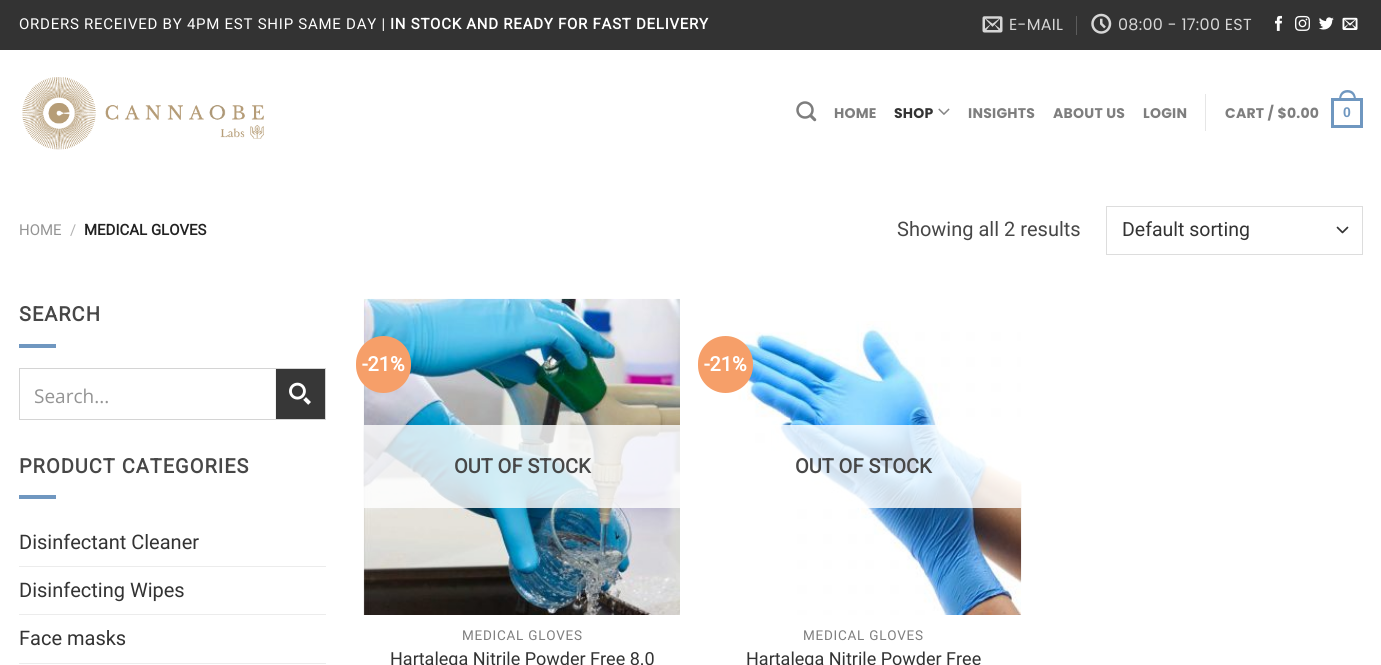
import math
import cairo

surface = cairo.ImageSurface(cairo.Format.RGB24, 1381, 665)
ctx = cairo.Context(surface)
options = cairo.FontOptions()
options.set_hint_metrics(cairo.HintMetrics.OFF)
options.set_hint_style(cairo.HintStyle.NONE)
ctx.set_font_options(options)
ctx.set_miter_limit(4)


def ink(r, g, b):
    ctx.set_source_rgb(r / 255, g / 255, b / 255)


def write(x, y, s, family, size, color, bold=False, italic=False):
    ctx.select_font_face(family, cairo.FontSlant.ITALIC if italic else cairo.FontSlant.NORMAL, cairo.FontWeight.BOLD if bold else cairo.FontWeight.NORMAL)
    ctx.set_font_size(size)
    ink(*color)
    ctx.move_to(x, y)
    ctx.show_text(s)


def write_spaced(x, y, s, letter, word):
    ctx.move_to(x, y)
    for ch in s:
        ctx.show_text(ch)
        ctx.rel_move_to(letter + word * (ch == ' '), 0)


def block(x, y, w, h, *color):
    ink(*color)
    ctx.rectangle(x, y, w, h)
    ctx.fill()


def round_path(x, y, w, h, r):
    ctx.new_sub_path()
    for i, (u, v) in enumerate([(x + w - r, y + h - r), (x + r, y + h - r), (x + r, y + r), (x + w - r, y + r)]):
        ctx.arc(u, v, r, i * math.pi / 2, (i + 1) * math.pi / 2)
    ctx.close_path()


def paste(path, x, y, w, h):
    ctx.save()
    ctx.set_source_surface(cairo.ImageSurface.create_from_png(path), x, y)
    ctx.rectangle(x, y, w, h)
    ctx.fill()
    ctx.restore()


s1 = dict(family="Roboto", size=15, color=(148, 148, 148))
s2 = dict(family="Roboto", size=15, color=(178, 178, 178))
s3 = dict(family="Roboto", size=15, color=(34, 34, 34), bold=True)
s4 = dict(family="Roboto", size=20, color=(71, 71, 71))
s5 = dict(family="Roboto", size=19.5, color=(51, 51, 51))
s6 = dict(family="Open Sans", size=19, color=(148, 148, 148))
s7 = dict(family="Roboto", size=20, color=(51, 51, 51))
s8 = dict(family="Roboto", size=20, color=(255, 255, 255), bold=True)
s9 = dict(family="Roboto", size=20, color=(71, 71, 71), bold=True)
s10 = dict(family="Roboto", size=18, color=(51, 51, 51))

ink(255, 255, 255)
ctx.paint()
block(0, 0, 1381, 50, 51, 51, 51)
ctx.select_font_face("Roboto")
ctx.set_font_size(15)
ink(255, 255, 255)
write_spaced(19, 29, "ORDERS RECEIVED BY 4PM EST SHIP SAME DAY |", 0.75, 0)
ctx.select_font_face("Roboto", cairo.FontSlant.NORMAL, cairo.FontWeight.BOLD)
write_spaced(390, 29, "IN STOCK AND READY FOR FAST DELIVERY", 0.75, 0)
paste("pic1.png", 982, 16, 21, 17)
ctx.select_font_face("Poppins")
ctx.set_font_size(16)
ink(214, 214, 214)
write_spaced(1009, 30, "E-MAIL", 0.3, 0)
block(1076, 16, 1, 19, 92, 92, 92)
paste("pic2.png", 1091, 13, 21, 21)
ink(214, 214, 214)
write_spaced(1118, 30, "08:00 - 17:00 EST", 0.3, 0)
paste("pic3.png", 1275, 15, 7, 16)
paste("pic4.png", 1295, 15, 15, 16)
paste("pic5.png", 1319, 17, 15, 13)
paste("pic6.png", 1342, 17, 16, 13)
paste("pic7.png", 22, 77, 242, 73)
paste("pic8.png", 796, 101, 21, 21)
ctx.select_font_face("Poppins", cairo.FontSlant.NORMAL, cairo.FontWeight.BOLD)
ctx.set_font_size(14)
ink(126, 126, 126)
write_spaced(834, 118, "HOME", 0.25, 0)
ink(51, 51, 51)
write_spaced(894, 118, "SHOP", 0.25, 0)
paste("pic9.png", 938, 108, 12, 7)
ink(126, 126, 126)
write_spaced(968, 118, "INSIGHTS", 0.25, 0)
write_spaced(1053, 118, "ABOUT US", 0.25, 0)
write_spaced(1143, 118, "LOGIN", 0.25, 0)
block(1205, 94, 1, 37, 230, 230, 230)
ink(126, 126, 126)
write_spaced(1225, 118, "CART / $0.00", 0.25, 0)
ctx.rectangle(1332.5, 99.5, 29, 27)
ink(111, 151, 192)
ctx.set_line_width(3)
ctx.stroke()
ctx.set_fill_rule(cairo.FillRule.EVEN_ODD)
ctx.new_path()
ctx.move_to(1347.5, 90)
ctx.curve_to(1353.5, 90, 1356, 94.5, 1356, 100)
ctx.line_to(1339, 100)
ctx.curve_to(1339, 94.5, 1341.5, 90, 1347.5, 90)
ctx.close_path()
ctx.move_to(1347.5, 92.5)
ctx.curve_to(1352, 92.5, 1354, 96, 1354, 100)
ctx.line_to(1341, 100)
ctx.curve_to(1341, 96, 1343, 92.5, 1347.5, 92.5)
ctx.close_path()
ctx.fill()
ctx.select_font_face("Liberation Sans", cairo.FontSlant.NORMAL, cairo.FontWeight.BOLD)
write_spaced(1343, 117, "0", 0.25, 0)
write(19, 235, "HOME", **s1)
write(70, 235, "/", **s2)
write(84, 235, "MEDICAL GLOVES", **s3)
write(897, 236, "Showing all 2 results", **s4)
ctx.new_path()
ctx.move_to(1337.5, 227.5)
ctx.line_to(1342.5, 232.5)
ctx.line_to(1347.5, 227.5)
ink(51, 51, 51)
ctx.set_line_width(1.7)
ctx.set_line_cap(cairo.LineCap.ROUND)
ctx.set_line_join(cairo.LineJoin.ROUND)
ctx.stroke()
ctx.rectangle(1106.5, 206.5, 256, 48)
ink(221, 221, 221)
ctx.set_line_width(1)
ctx.set_line_cap(cairo.LineCap.BUTT)
ctx.set_line_join(cairo.LineJoin.MITER)
ctx.stroke()
write(1122, 236, "Default sorting", **s5)
ctx.select_font_face("Roboto", cairo.FontSlant.NORMAL, cairo.FontWeight.BOLD)
ctx.set_font_size(20)
ink(71, 71, 71)
write_spaced(19, 321, "SEARCH", 1, 0)
block(19, 344, 37, 4, 111, 151, 192)
ctx.rectangle(19.5, 368.5, 306, 51)
ink(212, 212, 212)
ctx.stroke()
write(34, 403, "Search...", **s6)
block(276, 369, 49, 50, 55, 55, 55)
block(275, 369, 1, 50, 241, 241, 241)
paste("pic10.png", 289, 382, 22, 23)
ctx.select_font_face("Roboto", cairo.FontSlant.NORMAL, cairo.FontWeight.BOLD)
ctx.set_font_size(20)
ink(71, 71, 71)
write_spaced(19, 473, "PRODUCT CATEGORIES", 1, 0)
block(19, 495, 37, 4, 111, 151, 192)
write(19, 549, "Disinfectant Cleaner", **s7)
block(19, 566, 307, 1, 236, 236, 236)
write(19, 597, "Disinfecting Wipes", **s7)
block(19, 614, 307, 1, 236, 236, 236)
write(19, 645, "Face masks", **s7)
block(19, 663, 307, 1, 236, 236, 236)
paste("pic11.png", 363, 298, 317, 317)
ink(246, 159, 105)
round_path(356, 336, 55, 57, 27.5)
ctx.fill()
write(362, 371, "-21%", **s8)
ctx.set_source_rgba(1, 1, 1, 0.81)
ctx.rectangle(364, 425, 316, 83)
ctx.fill()
write(454, 473, "OUT OF STOCK", **s9)
ctx.select_font_face("Roboto")
ctx.set_font_size(13.5)
ink(126, 126, 126)
write_spaced(462, 640, "MEDICAL GLOVES", 0.75, 0)
write(390, 665, "Hartalega Nitrile Powder Free 8.0", **s10)
paste("pic12.png", 722, 321, 300, 294)
ink(246, 159, 105)
round_path(698, 336, 55, 57, 27.5)
ctx.fill()
write(704, 371, "-21%", **s8)
ctx.set_source_rgba(1, 1, 1, 0.81)
ctx.rectangle(772, 425, 249, 83)
ctx.fill()
write(795, 473, "OUT OF STOCK", **s9)
ctx.select_font_face("Roboto")
ctx.set_font_size(13.5)
ink(126, 126, 126)
write_spaced(803, 640, "MEDICAL GLOVES", 0.75, 0)
write(746, 665, "Hartalega Nitrile Powder Free", **s10)
surface.write_to_png("screenshot.png")
